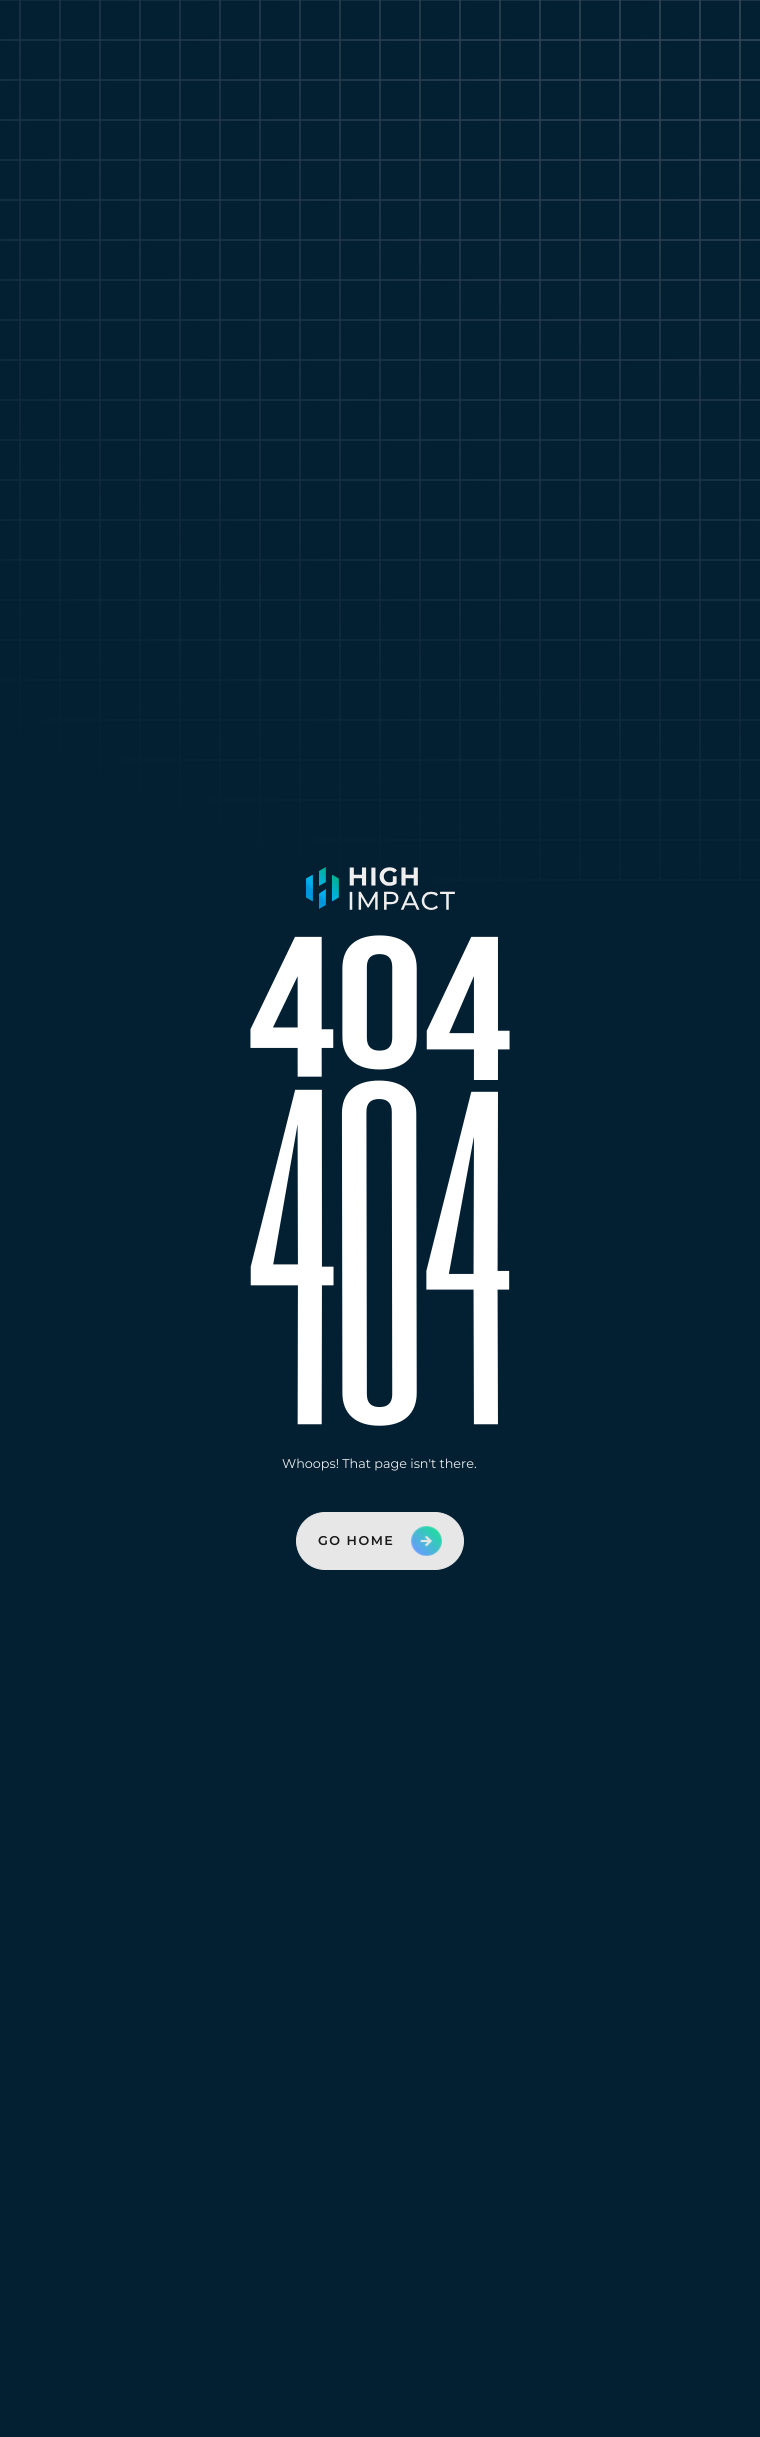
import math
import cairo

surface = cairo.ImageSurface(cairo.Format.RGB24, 760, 2437)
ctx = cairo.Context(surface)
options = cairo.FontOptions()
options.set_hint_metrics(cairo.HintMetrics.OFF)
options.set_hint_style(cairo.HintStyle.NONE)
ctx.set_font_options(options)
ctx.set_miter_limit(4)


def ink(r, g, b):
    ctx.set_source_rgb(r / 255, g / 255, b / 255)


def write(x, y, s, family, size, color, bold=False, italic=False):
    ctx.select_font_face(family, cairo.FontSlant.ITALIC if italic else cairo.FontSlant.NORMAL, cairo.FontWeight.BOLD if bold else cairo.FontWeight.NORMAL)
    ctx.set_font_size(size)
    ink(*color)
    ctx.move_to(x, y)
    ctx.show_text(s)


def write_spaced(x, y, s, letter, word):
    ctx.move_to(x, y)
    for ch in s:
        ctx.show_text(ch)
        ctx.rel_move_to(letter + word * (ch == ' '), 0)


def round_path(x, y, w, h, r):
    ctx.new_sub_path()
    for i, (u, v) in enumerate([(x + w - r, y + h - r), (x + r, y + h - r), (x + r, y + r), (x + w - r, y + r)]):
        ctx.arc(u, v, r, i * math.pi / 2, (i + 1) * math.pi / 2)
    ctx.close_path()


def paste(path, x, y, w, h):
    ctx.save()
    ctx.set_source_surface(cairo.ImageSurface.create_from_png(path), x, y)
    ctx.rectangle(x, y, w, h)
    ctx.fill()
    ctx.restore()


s1 = dict(family="Montserrat", size=12.75, color=(237, 237, 237))

ink(3, 31, 50)
ctx.paint()
paste("pic1.png", 0, 0, 760, 881)
paste("pic2.png", 306, 867, 149, 43)
paste("pic3.png", 250, 935, 260, 491)
write(282, 1468, "Whoops! That page isn't there.", **s1)
ink(231, 231, 231)
round_path(296.5, 1512.5, 167, 57, 28.5)
ctx.fill_preserve()
ctx.set_line_width(1)
ctx.stroke()
ctx.select_font_face("Montserrat SemiBold")
ink(26, 26, 26)
write_spaced(318, 1545, "GO HOME", 1.5, 0)
paste("pic4.png", 411, 1526, 31, 30)
surface.write_to_png("screenshot.png")
